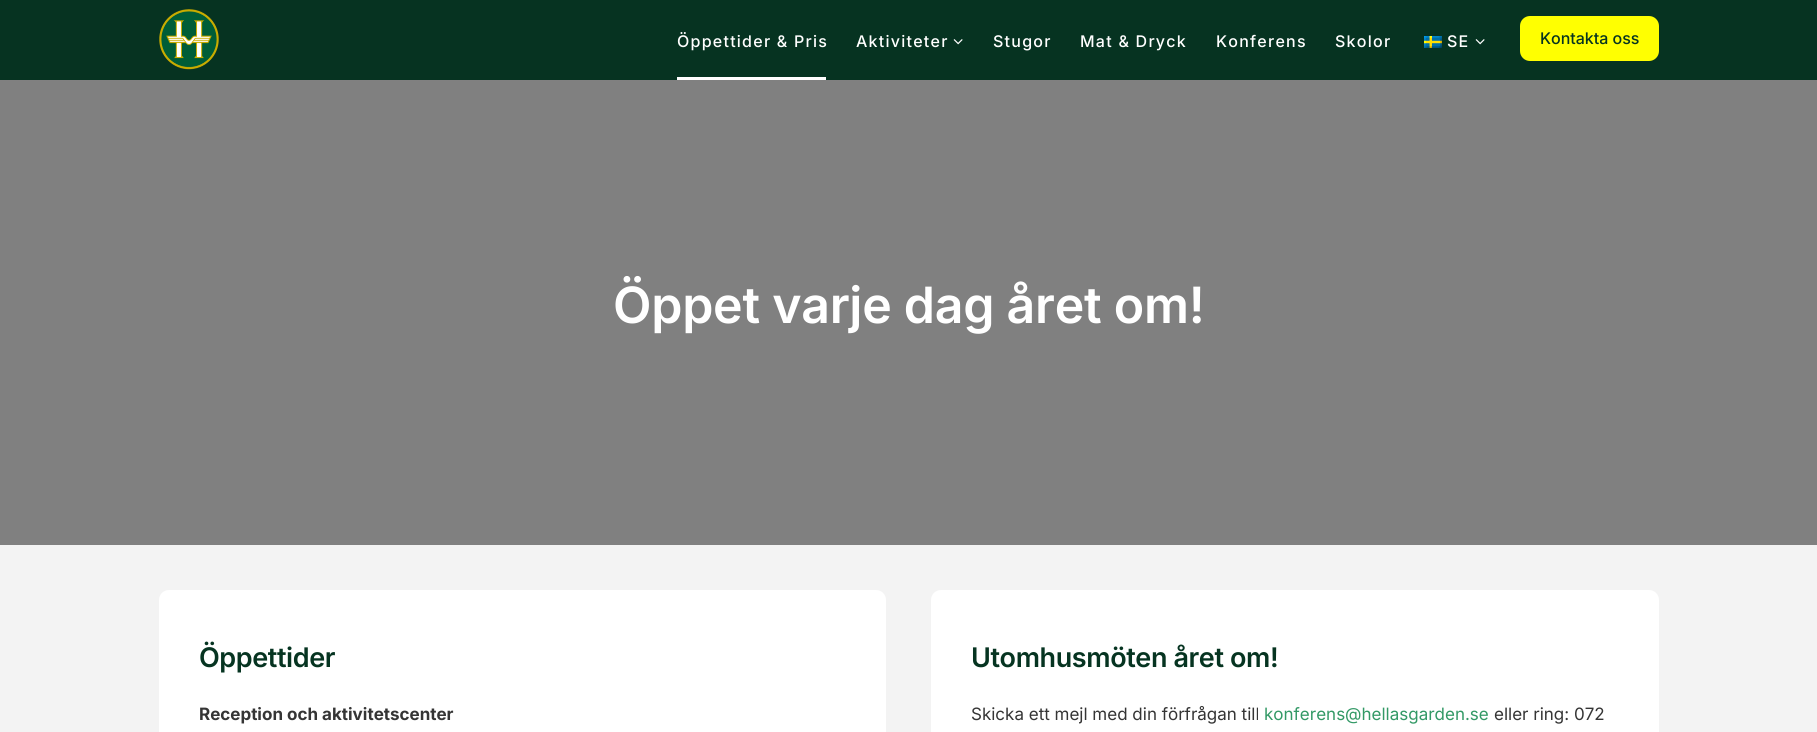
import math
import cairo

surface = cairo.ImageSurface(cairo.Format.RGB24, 1817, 732)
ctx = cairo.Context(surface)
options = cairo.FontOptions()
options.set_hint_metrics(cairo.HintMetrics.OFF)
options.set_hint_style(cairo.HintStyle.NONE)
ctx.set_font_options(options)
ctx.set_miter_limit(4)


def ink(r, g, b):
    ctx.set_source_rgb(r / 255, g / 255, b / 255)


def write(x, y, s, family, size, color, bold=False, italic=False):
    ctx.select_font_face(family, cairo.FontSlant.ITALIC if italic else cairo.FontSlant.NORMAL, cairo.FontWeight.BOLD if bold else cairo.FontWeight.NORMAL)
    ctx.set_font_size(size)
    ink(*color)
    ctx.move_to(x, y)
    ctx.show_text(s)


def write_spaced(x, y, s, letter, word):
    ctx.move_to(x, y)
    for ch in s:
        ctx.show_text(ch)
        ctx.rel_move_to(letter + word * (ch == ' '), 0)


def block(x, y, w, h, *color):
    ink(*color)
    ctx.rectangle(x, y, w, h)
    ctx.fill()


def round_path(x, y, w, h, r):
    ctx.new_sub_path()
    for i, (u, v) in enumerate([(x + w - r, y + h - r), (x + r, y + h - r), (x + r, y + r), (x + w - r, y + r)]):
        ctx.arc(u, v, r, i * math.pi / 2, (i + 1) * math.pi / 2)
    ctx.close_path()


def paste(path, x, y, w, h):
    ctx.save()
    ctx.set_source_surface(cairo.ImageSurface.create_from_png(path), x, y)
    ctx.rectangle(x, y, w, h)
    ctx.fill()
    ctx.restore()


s1 = dict(family="Inter Medium", size=16, color=(6, 52, 33))
s2 = dict(family="Inter", size=17, color=(53, 53, 53), bold=True)
s3 = dict(family="Inter", size=17, color=(53, 53, 53))
s4 = dict(family="Inter", size=17, color=(51, 153, 102))

ink(243, 243, 243)
ctx.paint()
block(0, 0, 1817, 80, 6, 51, 33)
paste("pic1.png", 159, 9, 60, 61)
block(677, 77, 149, 3, 255, 255, 255)
ctx.select_font_face("Inter Medium")
ctx.set_font_size(16)
write_spaced(677, 47, "Öppettider & Pris", 1.25, 0)
write_spaced(856, 47, "Aktiviteter", 1.25, 0)
paste("pic2.png", 953, 39, 10, 6)
write_spaced(993, 47, "Stugor", 1.25, 0)
write_spaced(1080, 47, "Mat & Dryck", 1.25, 0)
write_spaced(1216, 47, "Konferens", 1.25, 0)
write_spaced(1335, 47, "Skolor", 1.25, 0)
paste("pic3.png", 1424, 36, 18, 12)
write_spaced(1447, 47, "SE", 1.25, 0)
paste("pic2.png", 1475, 39, 10, 6)
ink(255, 255, 1)
round_path(1520, 16, 139, 45, 10)
ctx.fill()
write(1540, 44, "Kontakta oss", **s1)
block(0, 80, 1817, 465, 128, 128, 128)
ctx.select_font_face("Inter SemiBold")
ctx.set_font_size(50)
ink(255, 255, 255)
write_spaced(613, 323, "Öppet varje dag året om!", -0.25, 0)
round_path(159, 590, 727, 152, 10)
ctx.fill()
ctx.set_font_size(27)
ink(6, 52, 33)
write_spaced(199, 667, "Öppettider", -0.4, 0)
write(199, 720, "Reception och aktivitetscenter", **s2)
ink(255, 255, 255)
round_path(931, 590, 728, 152, 10)
ctx.fill()
ctx.select_font_face("Inter SemiBold")
ctx.set_font_size(27)
ink(6, 52, 33)
write_spaced(971, 667, "Utomhusmöten året om!", -0.4, 0)
write(971, 720, "Skicka ett mejl med din förfrågan till", **s3)
write(1264, 720, "konferens@hellasgarden.se", **s4)
write(1494, 720, "eller ring: 072", **s3)
surface.write_to_png("screenshot.png")
